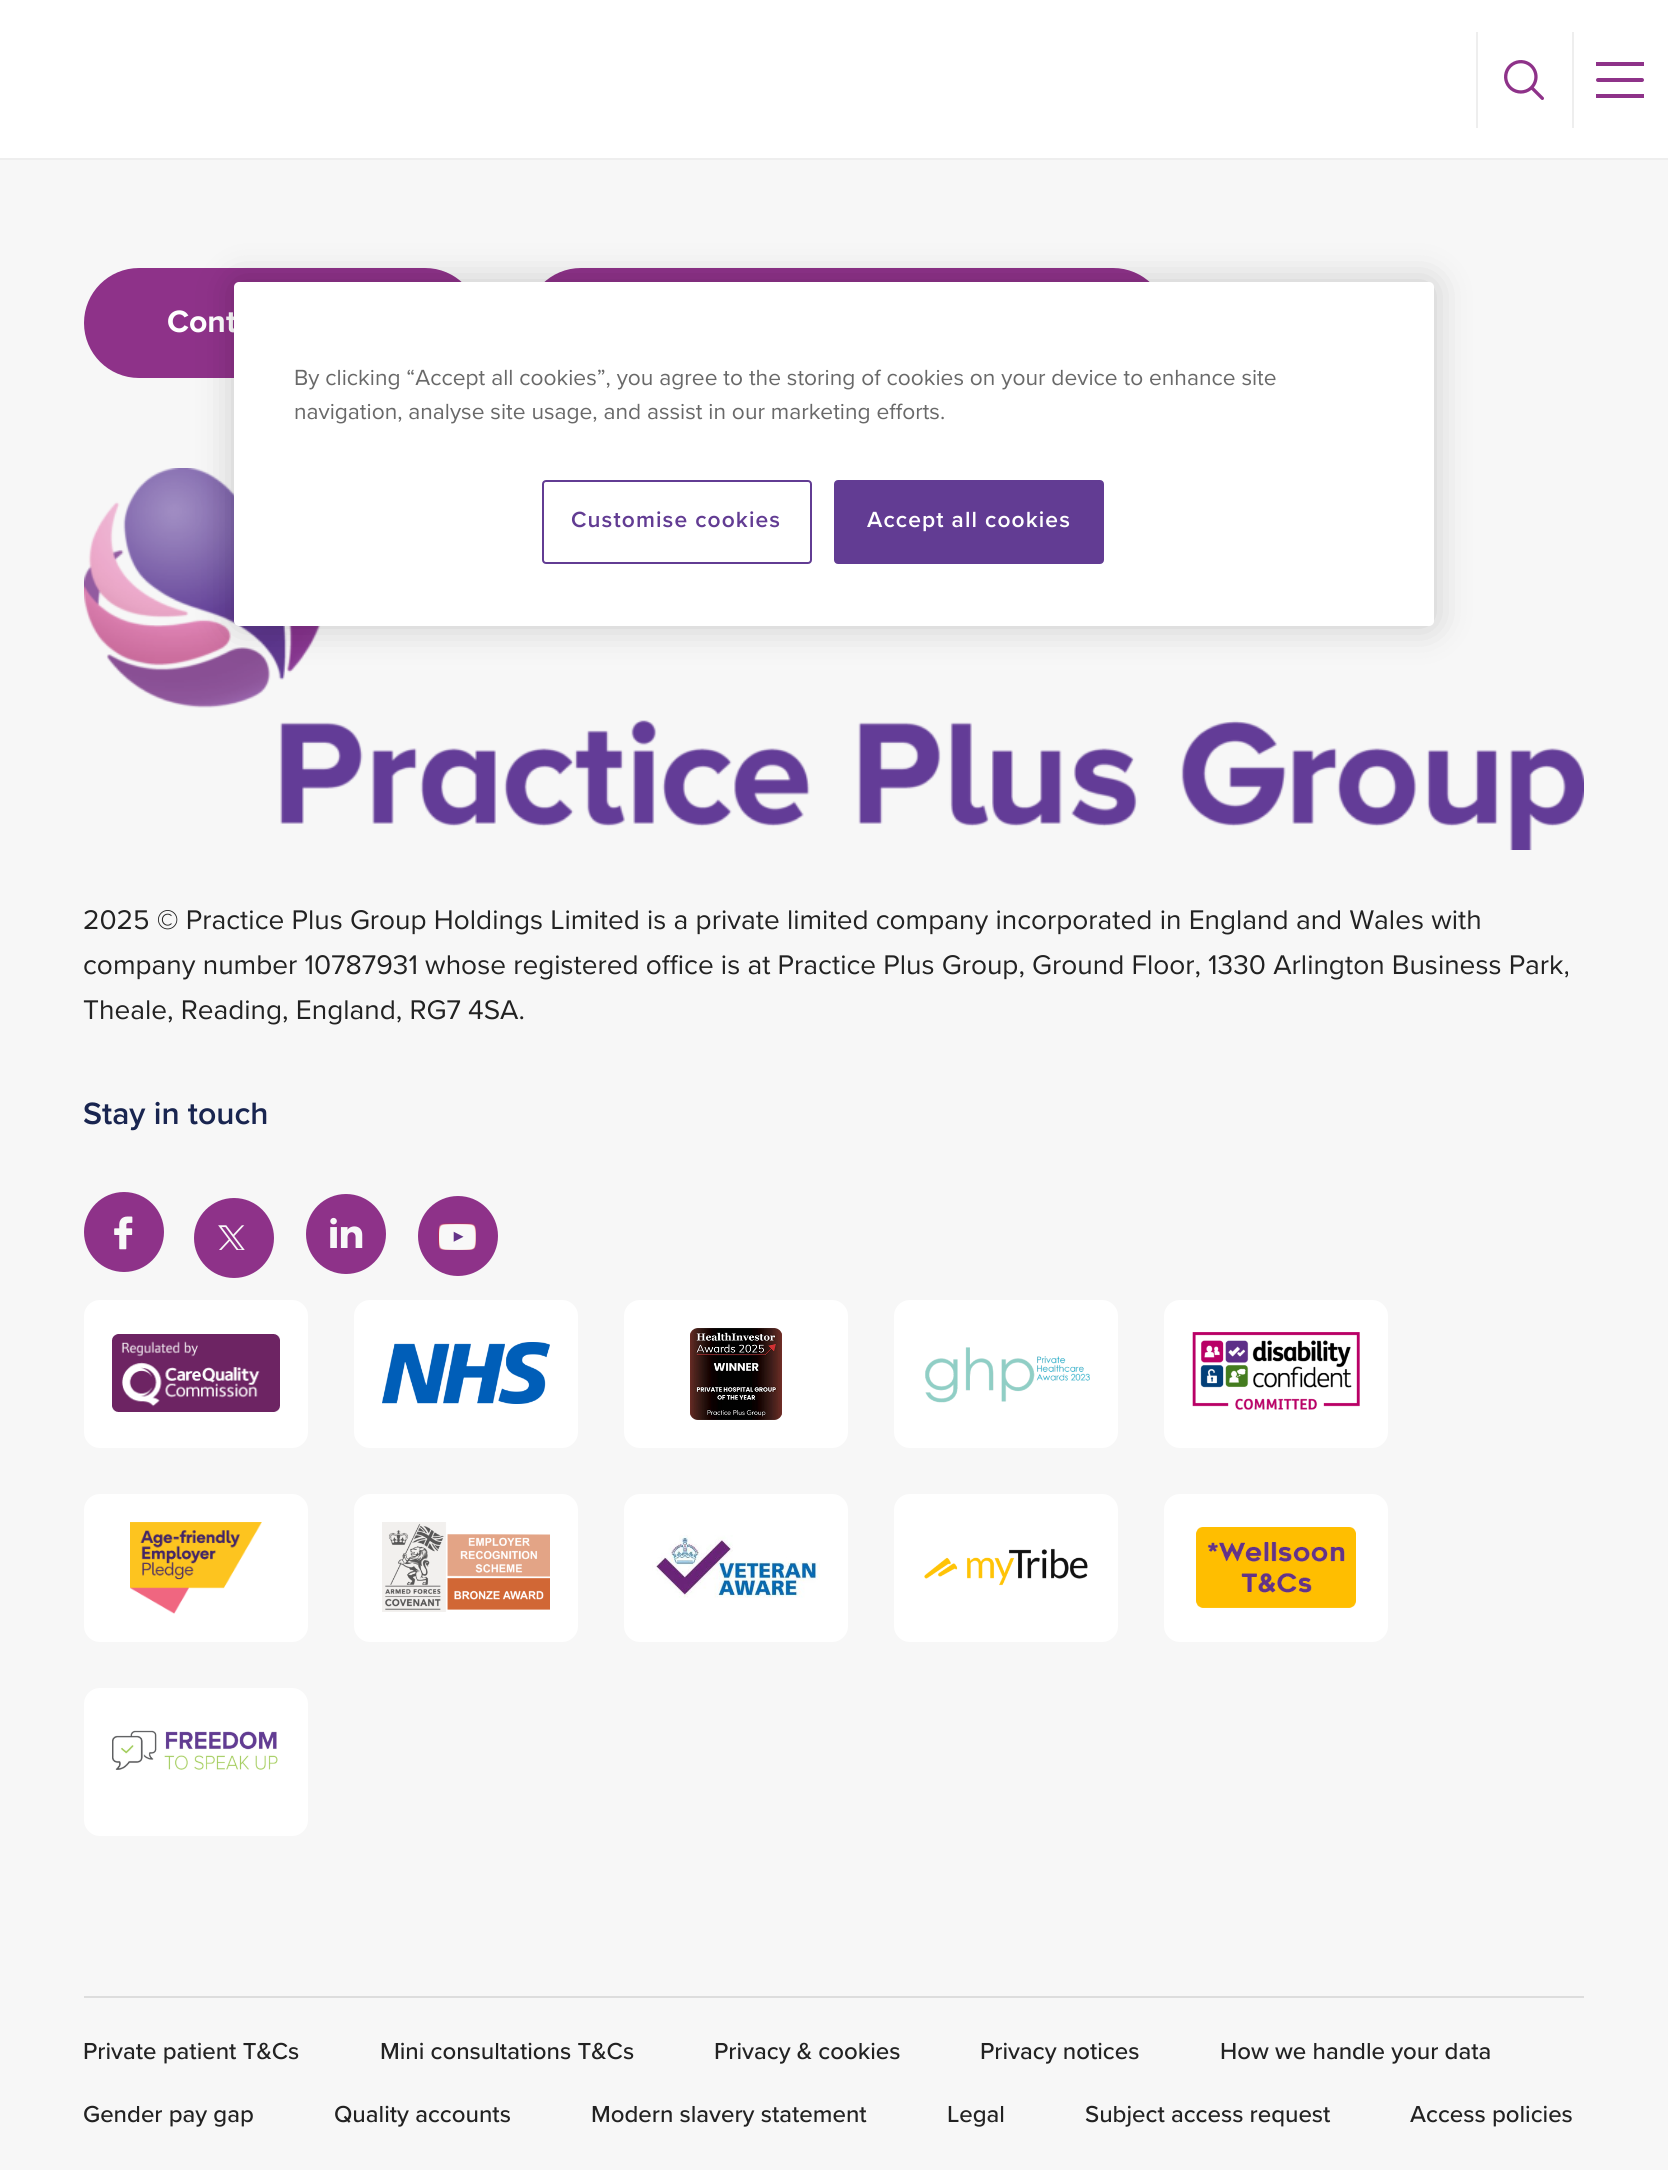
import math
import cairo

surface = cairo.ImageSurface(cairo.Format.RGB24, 1668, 2170)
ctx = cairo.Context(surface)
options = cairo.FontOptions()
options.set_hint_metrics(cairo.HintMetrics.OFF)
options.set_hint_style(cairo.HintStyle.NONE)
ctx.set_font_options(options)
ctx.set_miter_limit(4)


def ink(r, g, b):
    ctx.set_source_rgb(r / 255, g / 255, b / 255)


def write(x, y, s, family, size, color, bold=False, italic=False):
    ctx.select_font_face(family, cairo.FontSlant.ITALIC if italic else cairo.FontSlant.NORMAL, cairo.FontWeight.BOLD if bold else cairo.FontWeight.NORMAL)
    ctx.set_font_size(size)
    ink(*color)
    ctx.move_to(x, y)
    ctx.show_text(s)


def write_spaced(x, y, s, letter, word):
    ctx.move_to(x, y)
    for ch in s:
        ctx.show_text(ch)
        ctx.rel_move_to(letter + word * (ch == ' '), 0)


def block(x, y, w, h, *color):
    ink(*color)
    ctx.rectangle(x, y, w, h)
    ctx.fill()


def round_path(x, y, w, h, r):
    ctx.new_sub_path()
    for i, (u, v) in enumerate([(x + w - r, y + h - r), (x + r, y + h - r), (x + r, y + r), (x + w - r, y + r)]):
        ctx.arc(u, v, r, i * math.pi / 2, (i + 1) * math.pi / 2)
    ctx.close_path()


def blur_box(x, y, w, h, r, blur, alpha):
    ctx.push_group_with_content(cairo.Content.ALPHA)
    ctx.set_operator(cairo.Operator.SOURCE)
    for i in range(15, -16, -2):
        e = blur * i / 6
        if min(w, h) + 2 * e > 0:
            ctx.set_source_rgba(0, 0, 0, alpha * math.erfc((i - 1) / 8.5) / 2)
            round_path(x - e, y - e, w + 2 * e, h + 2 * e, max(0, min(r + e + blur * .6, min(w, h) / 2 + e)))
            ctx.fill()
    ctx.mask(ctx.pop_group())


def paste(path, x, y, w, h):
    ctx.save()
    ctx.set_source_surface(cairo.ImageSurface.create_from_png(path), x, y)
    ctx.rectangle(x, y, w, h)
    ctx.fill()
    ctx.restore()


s1 = dict(family="Proxima Nova", size=32, color=(255, 255, 255), bold=True)
s2 = dict(family="Proxima Nova", size=28, color=(34, 34, 34))
s3 = dict(family="Proxima Nova SemiBold", size=32, color=(25, 37, 80))
s4 = dict(family="Proxima Nova Medium", size=24, color=(34, 34, 34))
s5 = dict(family="Proxima Nova", size=22.75, color=(105, 105, 105))

ink(247, 247, 247)
ctx.paint()
block(0, 0, 1668, 158, 255, 255, 255)
block(0, 158, 1668, 2, 238, 238, 238)
block(1476, 32, 2, 96, 238, 238, 238)
paste("pic1.png", 1504, 60, 40, 40)
block(1572, 32, 2, 96, 238, 238, 238)
ink(142, 50, 137)
round_path(1596, 78, 48, 4, 2)
ctx.fill()
block(1596, 62, 48, 4, 142, 50, 137)
block(1596, 94, 48, 4, 142, 50, 137)
round_path(86, 270, 392, 106, 53)
ctx.fill_preserve()
ctx.set_line_width(4)
ctx.stroke()
write(167, 332, "Cont", **s1)
ink(142, 50, 137)
round_path(528, 270, 638, 106, 53)
ctx.fill_preserve()
ctx.stroke()
paste("pic2.png", 84, 468, 1500, 382)
write(83, 929, "2025 © Practice Plus Group Holdings Limited is a private limited company incorporated in England and Wales with", **s2)
write(83, 974, "company number 10787931 whose registered office is at Practice Plus Group, Ground Floor, 1330 Arlington Business Park,", **s2)
write(83, 1019, "Theale, Reading, England, RG7 4SA.", **s2)
write(83, 1124, "Stay in touch", **s3)
ink(142, 50, 137)
ctx.new_path()
ctx.arc(124, 1232, 40, 0, 2 * math.pi)
ctx.fill()
paste("pic3.png", 114, 1216, 19, 34)
ctx.arc(234, 1238, 40, 0, 2 * math.pi)
ctx.fill()
paste("pic4.png", 218, 1225, 27, 25)
ctx.arc(346, 1234, 40, 0, 2 * math.pi)
ctx.fill()
paste("pic5.png", 330, 1217, 33, 31)
ctx.arc(458, 1236, 40, 0, 2 * math.pi)
ctx.fill()
paste("pic6.png", 438, 1223, 38, 27)
ink(255, 255, 255)
round_path(84, 1300, 224, 148, 16)
ctx.fill()
paste("pic7.png", 112, 1334, 168, 78)
round_path(354, 1300, 224, 148, 16)
ctx.fill()
paste("pic8.png", 382, 1342, 168, 62)
round_path(624, 1300, 224, 148, 16)
ctx.fill()
paste("pic9.png", 690, 1328, 92, 92)
round_path(894, 1300, 224, 148, 16)
ctx.fill()
paste("pic10.png", 925, 1347, 165, 56)
round_path(1164, 1300, 224, 148, 16)
ctx.fill()
paste("pic11.png", 1192, 1332, 168, 78)
round_path(84, 1494, 224, 148, 16)
ctx.fill()
paste("pic12.png", 130, 1522, 132, 92)
round_path(354, 1494, 224, 148, 16)
ctx.fill()
paste("pic13.png", 382, 1522, 168, 90)
round_path(624, 1494, 224, 148, 16)
ctx.fill()
paste("pic14.png", 652, 1535, 168, 63)
round_path(894, 1494, 224, 148, 16)
ctx.fill()
paste("pic15.png", 924, 1548, 164, 38)
round_path(1164, 1494, 224, 148, 16)
ctx.fill()
paste("pic16.png", 1196, 1527, 160, 81)
round_path(84, 1688, 224, 148, 16)
ctx.fill()
paste("pic17.png", 112, 1730, 166, 40)
block(84, 1996, 1500, 2, 221, 221, 221)
write(83, 2059, "Private patient T&Cs", **s4)
write(380, 2059, "Mini consultations T&Cs", **s4)
write(714, 2059, "Privacy & cookies", **s4)
write(980, 2059, "Privacy notices", **s4)
write(1220, 2059, "How we handle your data", **s4)
write(83, 2122, "Gender pay gap", **s4)
write(334, 2122, "Quality accounts", **s4)
write(591, 2122, "Modern slavery statement", **s4)
write(947, 2122, "Legal", **s4)
write(1085, 2122, "Subject access request", **s4)
write(1410, 2122, "Access policies", **s4)
ink(0, 0, 0)
blur_box(234, 282, 1200, 344, 5, 18, 0.2)
ink(255, 255, 255)
round_path(234, 282, 1200, 344, 5)
ctx.fill()
write(294, 385, "By clicking “Accept all cookies”, you agree to the storing of cookies on your device to enhance site", **s5)
write(294, 419, "navigation, analyse site usage, and assist in our marketing efforts.", **s5)
round_path(543, 481, 268, 82, 3)
ink(98, 60, 147)
ctx.set_line_width(2)
ctx.stroke()
ctx.select_font_face("Proxima Nova SemiBold")
write_spaced(571, 527, "Customise cookies", 1.1, 0)
round_path(835, 481, 268, 82, 3)
ctx.fill_preserve()
ctx.stroke()
ink(255, 255, 255)
write_spaced(867, 527, "Accept all cookies", 1.1, 0)
surface.write_to_png("screenshot.png")
